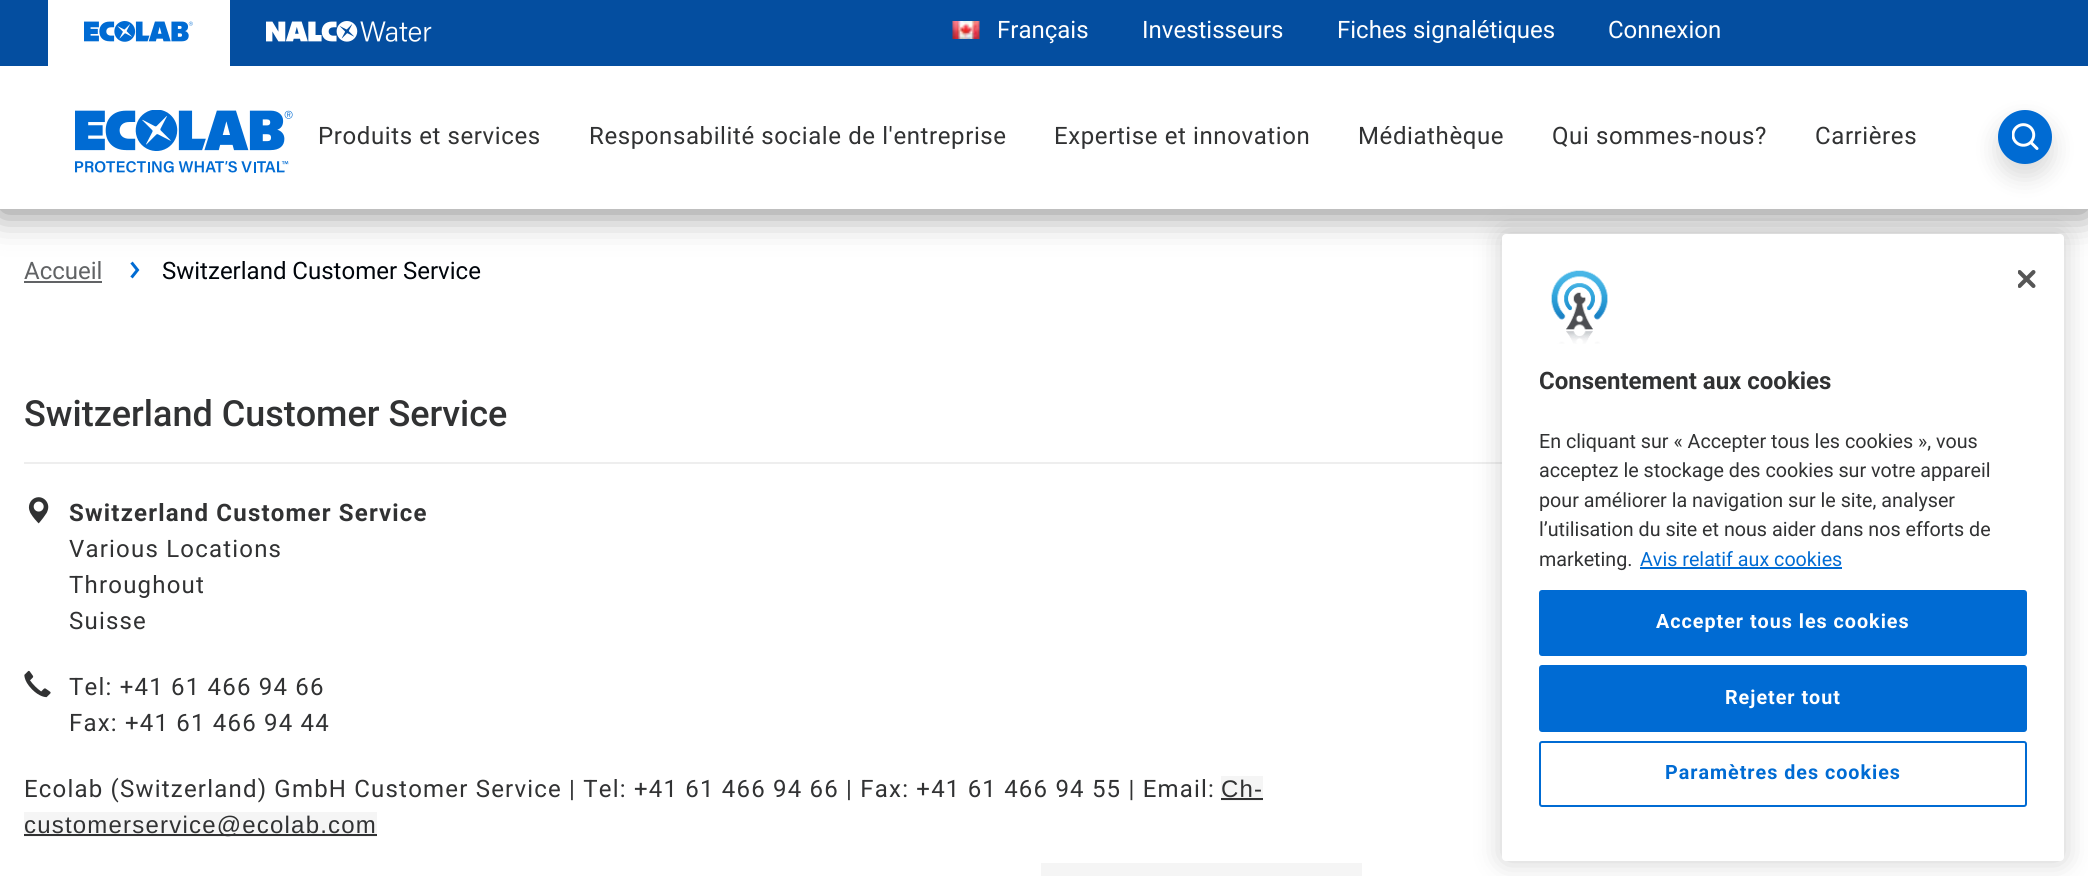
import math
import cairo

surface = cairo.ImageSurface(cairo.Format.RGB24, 2088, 876)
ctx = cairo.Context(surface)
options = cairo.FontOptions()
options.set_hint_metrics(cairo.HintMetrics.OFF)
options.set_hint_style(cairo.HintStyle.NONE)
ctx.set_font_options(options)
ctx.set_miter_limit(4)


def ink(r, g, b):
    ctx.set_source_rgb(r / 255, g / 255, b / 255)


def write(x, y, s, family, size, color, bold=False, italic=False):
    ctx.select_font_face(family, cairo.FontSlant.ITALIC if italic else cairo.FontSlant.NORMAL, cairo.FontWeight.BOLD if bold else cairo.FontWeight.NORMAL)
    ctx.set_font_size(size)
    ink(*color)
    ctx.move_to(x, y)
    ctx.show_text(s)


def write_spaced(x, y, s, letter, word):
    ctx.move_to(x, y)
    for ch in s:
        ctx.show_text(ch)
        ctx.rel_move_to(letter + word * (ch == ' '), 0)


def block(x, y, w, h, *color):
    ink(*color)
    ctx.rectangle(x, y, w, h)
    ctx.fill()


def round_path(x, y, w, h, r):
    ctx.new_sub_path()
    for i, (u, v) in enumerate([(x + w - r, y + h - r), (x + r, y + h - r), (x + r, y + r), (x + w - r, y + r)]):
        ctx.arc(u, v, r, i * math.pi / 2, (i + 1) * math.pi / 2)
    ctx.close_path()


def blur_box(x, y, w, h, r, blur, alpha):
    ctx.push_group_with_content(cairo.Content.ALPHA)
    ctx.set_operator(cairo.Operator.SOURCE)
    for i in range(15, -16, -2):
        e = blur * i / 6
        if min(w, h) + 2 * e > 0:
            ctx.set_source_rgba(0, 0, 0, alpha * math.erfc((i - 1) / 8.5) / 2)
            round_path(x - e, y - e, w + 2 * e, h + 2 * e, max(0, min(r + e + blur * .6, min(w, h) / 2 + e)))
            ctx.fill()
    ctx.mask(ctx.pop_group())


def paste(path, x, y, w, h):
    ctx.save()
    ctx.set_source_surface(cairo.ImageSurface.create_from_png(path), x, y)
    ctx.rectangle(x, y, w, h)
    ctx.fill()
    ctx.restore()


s1 = dict(family="Roboto", size=24, color=(255, 255, 255))
s2 = dict(family="Roboto", size=24, color=(97, 99, 101))
s3 = dict(family="Roboto", size=24, color=(0, 5, 11))
s4 = dict(family="Roboto Medium", size=36, color=(49, 50, 51))
s5 = dict(family="Roboto", size=24, color=(49, 50, 51), bold=True)
s6 = dict(family="Roboto", size=19.7, color=(49, 50, 51))
s7 = dict(family="Roboto", size=19.7, color=(0, 107, 211))

ink(255, 255, 255)
ctx.paint()
ctx.new_path()
ctx.move_to(131.5, 262.5)
ctx.line_to(137.5, 270)
ctx.line_to(131.5, 277.5)
ink(0, 107, 211)
ctx.set_line_width(3)
ctx.stroke()
ctx.save()
ctx.set_fill_rule(cairo.FillRule.EVEN_ODD)
ctx.new_path()
ctx.move_to(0, 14)
ctx.line_to(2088, 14)
ctx.line_to(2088, 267)
ctx.line_to(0, 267)
ctx.close_path()
ctx.move_to(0, 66)
ctx.line_to(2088, 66)
ctx.line_to(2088, 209)
ctx.line_to(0, 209)
ctx.close_path()
ctx.clip()
ink(0, 0, 0)
blur_box(0, 69, 2088, 143, 0, 18, 0.5)
ctx.restore()
block(0, 0, 2088, 66, 4, 78, 160)
block(48, 0, 182, 66, 255, 255, 255)
paste("pic1.png", 84, 21, 109, 21)
paste("pic2.png", 266, 21, 166, 21)
paste("pic3.png", 952, 21, 28, 18)
write(997, 38, "Français", **s1)
write(1142, 38, "Investisseurs", **s1)
write(1337, 38, "Fiches signalétiques", **s1)
write(1608, 38, "Connexion", **s1)
paste("pic4.png", 75, 110, 218, 63)
block(48, 208, 1992, 1, 255, 255, 255)
ink(49, 50, 51)
write_spaced(318, 144, "Produits et services", 0.6, 0)
write_spaced(589, 144, "Responsabilité sociale de l'entreprise", 0.6, 0)
write_spaced(1054, 144, "Expertise et innovation", 0.6, 0)
write_spaced(1358, 144, "Médiathèque", 0.6, 0)
write_spaced(1552, 144, "Qui sommes-nous?", 0.6, 0)
write_spaced(1815, 144, "Carrières", 0.6, 0)
ink(0, 0, 0)
blur_box(1998, 122, 54, 54, 27, 12, 0.15)
ink(0, 107, 211)
ctx.arc(2025, 137, 27, 0, 2 * math.pi)
ctx.fill()
paste("pic5.png", 2012, 123, 27, 27)
write(24, 279, "Accueil", **s2)
block(24, 281, 78, 2, 97, 99, 101)
write(162, 279, "Switzerland Customer Service", **s3)
block(24, 462, 1478, 2, 238, 238, 238)
write(24, 426, "Switzerland Customer Service", **s4)
paste("pic6.png", 28, 497, 21, 27)
ctx.select_font_face("Roboto", cairo.FontSlant.NORMAL, cairo.FontWeight.BOLD)
ctx.set_font_size(24)
write_spaced(69, 521, "Switzerland Customer Service", 1.2, 0)
ctx.select_font_face("Roboto")
write_spaced(69, 557, "Various Locations", 1.2, 0)
write_spaced(69, 593, "Throughout", 1.2, 0)
write_spaced(69, 629, "Suisse", 1.2, 0)
paste("pic7.png", 24, 670, 27, 28)
write_spaced(69, 695, "Tel: +41 61 466 94 66", 1.2, 0)
write_spaced(69, 731, "Fax: +41 61 466 94 44", 1.2, 0)
write_spaced(24, 797, "Ecolab (Switzerland) GmbH Customer Service | Tel: +41 61 466 94 66 | Fax: +41 61 466 94 55 | Email:", 1.2, 0)
block(1221, 776, 42, 25, 245, 245, 245)
ctx.select_font_face("Liberation Sans")
ink(49, 50, 51)
write_spaced(1221, 797, "Ch-", 1.2, 0)
block(1221, 798, 42, 2, 49, 50, 51)
block(24, 812, 353, 25, 245, 245, 245)
block(24, 834, 353, 2, 49, 50, 51)
write_spaced(24, 833, "customerservice@ecolab.com", 1.2, 0)
block(1041, 863, 321, 13, 245, 245, 245)
ink(0, 0, 0)
blur_box(1502, 234, 562, 627, 4, 13.5, 0.2)
ink(255, 255, 255)
round_path(1502, 234, 562, 627, 4)
ctx.fill()
paste("pic8.png", 2018, 270, 18, 18)
paste("pic9.png", 1551, 270, 57, 74)
write(1539, 389, "Consentement aux cookies", **s5)
write(1539, 448, "En cliquant sur « Accepter tous les cookies », vous", **s6)
write(1539, 477, "acceptez le stockage des cookies sur votre appareil", **s6)
write(1539, 507, "pour améliorer la navigation sur le site, analyser", **s6)
write(1539, 536, "l’utilisation du site et nous aider dans nos efforts de", **s6)
write(1539, 566, "marketing.", **s6)
write(1640, 566, "Avis relatif aux cookies", **s7)
block(1640, 567, 202, 2, 0, 107, 211)
round_path(1540, 591, 486, 64, 2)
ctx.fill_preserve()
ctx.set_line_width(2)
ctx.stroke()
ctx.select_font_face("Roboto", cairo.FontSlant.NORMAL, cairo.FontWeight.BOLD)
ink(255, 255, 255)
write_spaced(1656, 628, "Accepter tous les cookies", 1, 0)
ink(0, 107, 211)
round_path(1540, 666, 486, 65, 2)
ctx.fill_preserve()
ctx.stroke()
ink(255, 255, 255)
write_spaced(1725, 704, "Rejeter tout", 1, 0)
round_path(1540, 742, 486, 64, 2)
ink(0, 107, 211)
ctx.stroke()
write_spaced(1665, 779, "Paramètres des cookies", 1, 0)
surface.write_to_png("screenshot.png")
